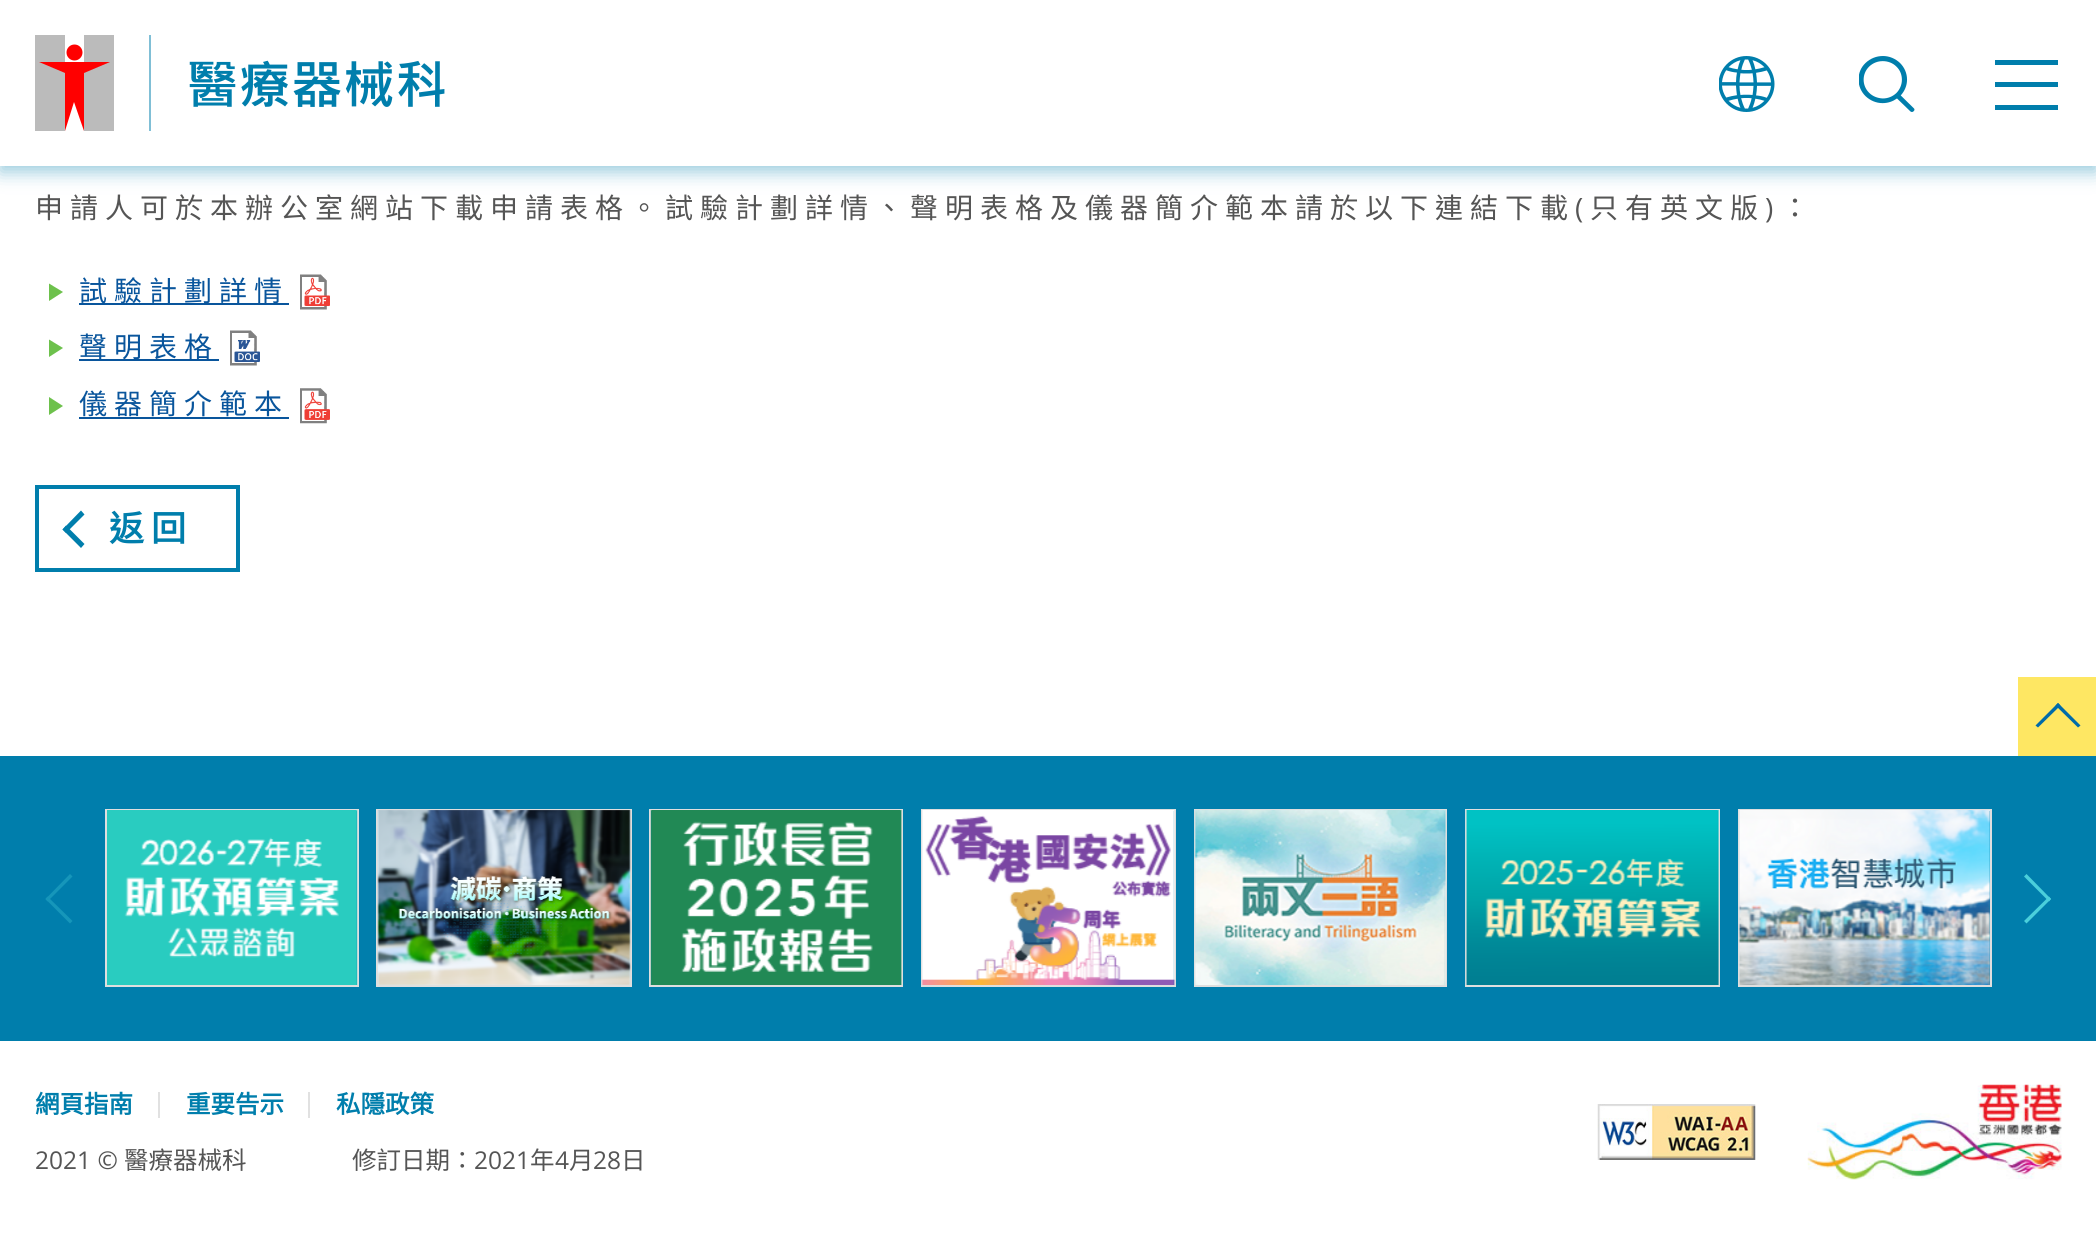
import math
import cairo

surface = cairo.ImageSurface(cairo.Format.RGB24, 2096, 1242)
ctx = cairo.Context(surface)
options = cairo.FontOptions()
options.set_hint_metrics(cairo.HintMetrics.OFF)
options.set_hint_style(cairo.HintStyle.NONE)
ctx.set_font_options(options)
ctx.set_miter_limit(4)


def ink(r, g, b):
    ctx.set_source_rgb(r / 255, g / 255, b / 255)


def write(x, y, s, family, size, color, bold=False, italic=False):
    ctx.select_font_face(family, cairo.FontSlant.ITALIC if italic else cairo.FontSlant.NORMAL, cairo.FontWeight.BOLD if bold else cairo.FontWeight.NORMAL)
    ctx.set_font_size(size)
    ink(*color)
    ctx.move_to(x, y)
    ctx.show_text(s)


def write_spaced(x, y, s, letter, word):
    ctx.move_to(x, y)
    for ch in s:
        ctx.show_text(ch)
        ctx.rel_move_to(letter + word * (ch == ' '), 0)


def block(x, y, w, h, *color):
    ink(*color)
    ctx.rectangle(x, y, w, h)
    ctx.fill()


def round_path(x, y, w, h, r):
    ctx.new_sub_path()
    for i, (u, v) in enumerate([(x + w - r, y + h - r), (x + r, y + h - r), (x + r, y + r), (x + w - r, y + r)]):
        ctx.arc(u, v, r, i * math.pi / 2, (i + 1) * math.pi / 2)
    ctx.close_path()


def blur_box(x, y, w, h, r, blur, alpha):
    ctx.push_group_with_content(cairo.Content.ALPHA)
    ctx.set_operator(cairo.Operator.SOURCE)
    for i in range(15, -16, -2):
        e = blur * i / 6
        if min(w, h) + 2 * e > 0:
            ctx.set_source_rgba(0, 0, 0, alpha * math.erfc((i - 1) / 8.5) / 2)
            round_path(x - e, y - e, w + 2 * e, h + 2 * e, max(0, min(r + e + blur * .6, min(w, h) / 2 + e)))
            ctx.fill()
    ctx.mask(ctx.pop_group())


def paste(path, x, y, w, h):
    ctx.save()
    ctx.set_source_surface(cairo.ImageSurface.create_from_png(path), x, y)
    ctx.rectangle(x, y, w, h)
    ctx.fill()
    ctx.restore()


s1 = dict(family="Noto Sans CJK HK", size=24.5, color=(0, 126, 172), bold=True)
s2 = dict(family="Open Sans", size=24.5, color=(85, 85, 85))
s3 = dict(family="Noto Sans CJK HK", size=24.5, color=(85, 85, 85))

ink(255, 255, 255)
ctx.paint()
ink(0, 126, 172)
blur_box(0, 5, 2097, 167, 0, 9, 0.4)
block(0, 0, 2096, 166, 255, 255, 255)
block(35, 35, 30, 96, 187, 187, 187)
ink(255, 0, 0)
ctx.arc(74.5, 52.5, 8, 0, 2 * math.pi)
ctx.fill()
block(84, 35, 30, 96, 187, 187, 187)
ink(255, 0, 0)
ctx.new_path()
ctx.move_to(39, 62)
ctx.line_to(110, 62)
ctx.line_to(84, 73)
ctx.line_to(84, 131)
ctx.line_to(74, 102)
ctx.line_to(65, 131)
ctx.line_to(65, 73)
ctx.fill()
block(149, 35, 2, 96, 128, 191, 214)
paste("pic1.png", 189, 60, 256, 47)
paste("pic2.png", 1719, 56, 56, 56)
paste("pic3.png", 1859, 56, 56, 56)
block(1995, 82, 63, 5, 0, 126, 172)
block(1995, 60, 63, 5, 0, 126, 172)
block(1995, 105, 63, 5, 0, 126, 172)
ctx.select_font_face("Noto Sans CJK HK")
ctx.set_font_size(28)
ink(85, 85, 85)
write_spaced(35, 218, "申請人可於本辦公室網站下載申請表格。試驗計劃詳情、聲明表格及儀器簡介範本請於以下連結下載", 7, 0)
ctx.select_font_face("Open Sans")
write_spaced(1575, 218, "(", 7, 0)
ctx.select_font_face("Noto Sans CJK HK")
write_spaced(1590, 218, "只有英文版", 7, 0)
ctx.select_font_face("Open Sans")
write_spaced(1765, 218, ")", 7, 0)
ctx.select_font_face("Noto Sans CJK HK")
write_spaced(1781, 218, "：", 7, 0)
ink(109, 193, 76)
ctx.new_path()
ctx.move_to(49, 301)
ctx.line_to(49, 283.5)
ctx.line_to(63, 292)
ctx.close_path()
ctx.fill()
block(79, 303, 210, 2, 9, 85, 156)
write_spaced(79, 301, "試驗計劃詳情", 7, 0)
paste("pic4.png", 300, 274, 30, 36)
ink(109, 193, 76)
ctx.new_path()
ctx.move_to(49, 357)
ctx.line_to(49, 339.5)
ctx.line_to(63, 348)
ctx.close_path()
ctx.fill()
block(79, 359, 140, 2, 9, 85, 156)
write_spaced(79, 357, "聲明表格", 7, 0)
paste("pic5.png", 230, 330, 30, 36)
ink(109, 193, 76)
ctx.new_path()
ctx.move_to(49, 415)
ctx.line_to(49, 397)
ctx.line_to(63, 406)
ctx.close_path()
ctx.fill()
ink(9, 85, 156)
write_spaced(79, 414, "儀器簡介範本", 7, 0)
block(79, 417, 210, 2, 9, 85, 156)
paste("pic6.png", 300, 388, 30, 36)
ctx.rectangle(37, 487, 201, 83)
ink(0, 126, 172)
ctx.set_line_width(4)
ctx.stroke()
ctx.new_path()
ctx.move_to(62.5, 529.5)
ctx.line_to(81, 510.5)
ctx.line_to(84.5, 514.5)
ctx.line_to(66, 533)
ctx.close_path()
ctx.fill()
ctx.new_path()
ctx.move_to(62.5, 529.5)
ctx.line_to(66, 525.5)
ctx.line_to(84.5, 544)
ctx.line_to(81, 548)
ctx.close_path()
ctx.fill()
ctx.select_font_face("Noto Sans CJK HK", cairo.FontSlant.NORMAL, cairo.FontWeight.BOLD)
ctx.set_font_size(35)
write_spaced(109, 541, "返回", 7, 0)
block(2018, 677, 78, 79, 254, 231, 99)
ink(0, 107, 169)
ctx.new_path()
ctx.move_to(2035.5, 725.5)
ctx.line_to(2058, 703)
ctx.line_to(2060.5, 705.5)
ctx.line_to(2038, 727.5)
ctx.close_path()
ctx.fill()
ctx.new_path()
ctx.move_to(2055.5, 705.5)
ctx.line_to(2058, 703)
ctx.line_to(2080.5, 725.5)
ctx.line_to(2078, 727.5)
ctx.close_path()
ctx.fill()
block(0, 756, 2096, 285, 0, 126, 172)
ink(22, 150, 186)
ctx.new_path()
ctx.move_to(45.5, 899)
ctx.line_to(70, 874)
ctx.line_to(72.5, 876.5)
ctx.line_to(47.5, 901.5)
ctx.close_path()
ctx.fill()
ctx.new_path()
ctx.move_to(45.5, 899)
ctx.line_to(47.5, 896.5)
ctx.line_to(72.5, 921)
ctx.line_to(70, 923.5)
ctx.close_path()
ctx.fill()
ctx.rectangle(106, 810, 252, 176)
ink(223, 223, 223)
ctx.set_line_width(2)
ctx.stroke()
paste("pic7.png", 107, 810, 251, 175)
ink(219, 244, 254)
ctx.rectangle(377, 810, 254, 176)
ctx.fill_preserve()
ink(223, 223, 223)
ctx.stroke()
paste("pic8.png", 377, 810, 254, 175)
ctx.rectangle(650, 810, 252, 176)
ctx.stroke()
paste("pic9.png", 650, 810, 252, 175)
ctx.rectangle(922, 810, 253, 176)
ctx.stroke()
paste("pic10.png", 921, 810, 254, 175)
ctx.rectangle(1195, 810, 251, 176)
ctx.stroke()
paste("pic11.png", 1194, 810, 252, 175)
ctx.rectangle(1466, 810, 253, 176)
ctx.stroke()
paste("pic12.png", 1465, 810, 254, 175)
ctx.rectangle(1739, 810, 252, 176)
ctx.stroke()
paste("pic13.png", 1738, 810, 252, 175)
ink(74, 207, 219)
ctx.new_path()
ctx.move_to(2026.5, 874)
ctx.line_to(2051, 899)
ctx.line_to(2049, 901.5)
ctx.line_to(2024, 876.5)
ctx.close_path()
ctx.fill()
ctx.new_path()
ctx.move_to(2049, 896.5)
ctx.line_to(2051, 899)
ctx.line_to(2026.5, 923.5)
ctx.line_to(2024, 921)
ctx.close_path()
ctx.fill()
write(35, 1113, "網頁指南", **s1)
block(158, 1092, 2, 26, 225, 225, 225)
write(186, 1113, "重要告示", **s1)
block(308, 1092, 2, 26, 225, 225, 225)
write(336, 1113, "私隱政策", **s1)
write(35, 1169, "2021 ©", **s2)
write(124, 1169, "醫療器械科", **s3)
write(352, 1169, "修訂日期：", **s3)
write(474, 1169, "2021", **s2)
write(530, 1169, "年", **s3)
write(555, 1169, "4", **s2)
write(569, 1169, "月", **s3)
write(593, 1169, "28", **s2)
write(621, 1169, "日", **s3)
paste("pic14.png", 1597, 1104, 159, 56)
paste("pic15.png", 1807, 1084, 255, 96)
surface.write_to_png("screenshot.png")
